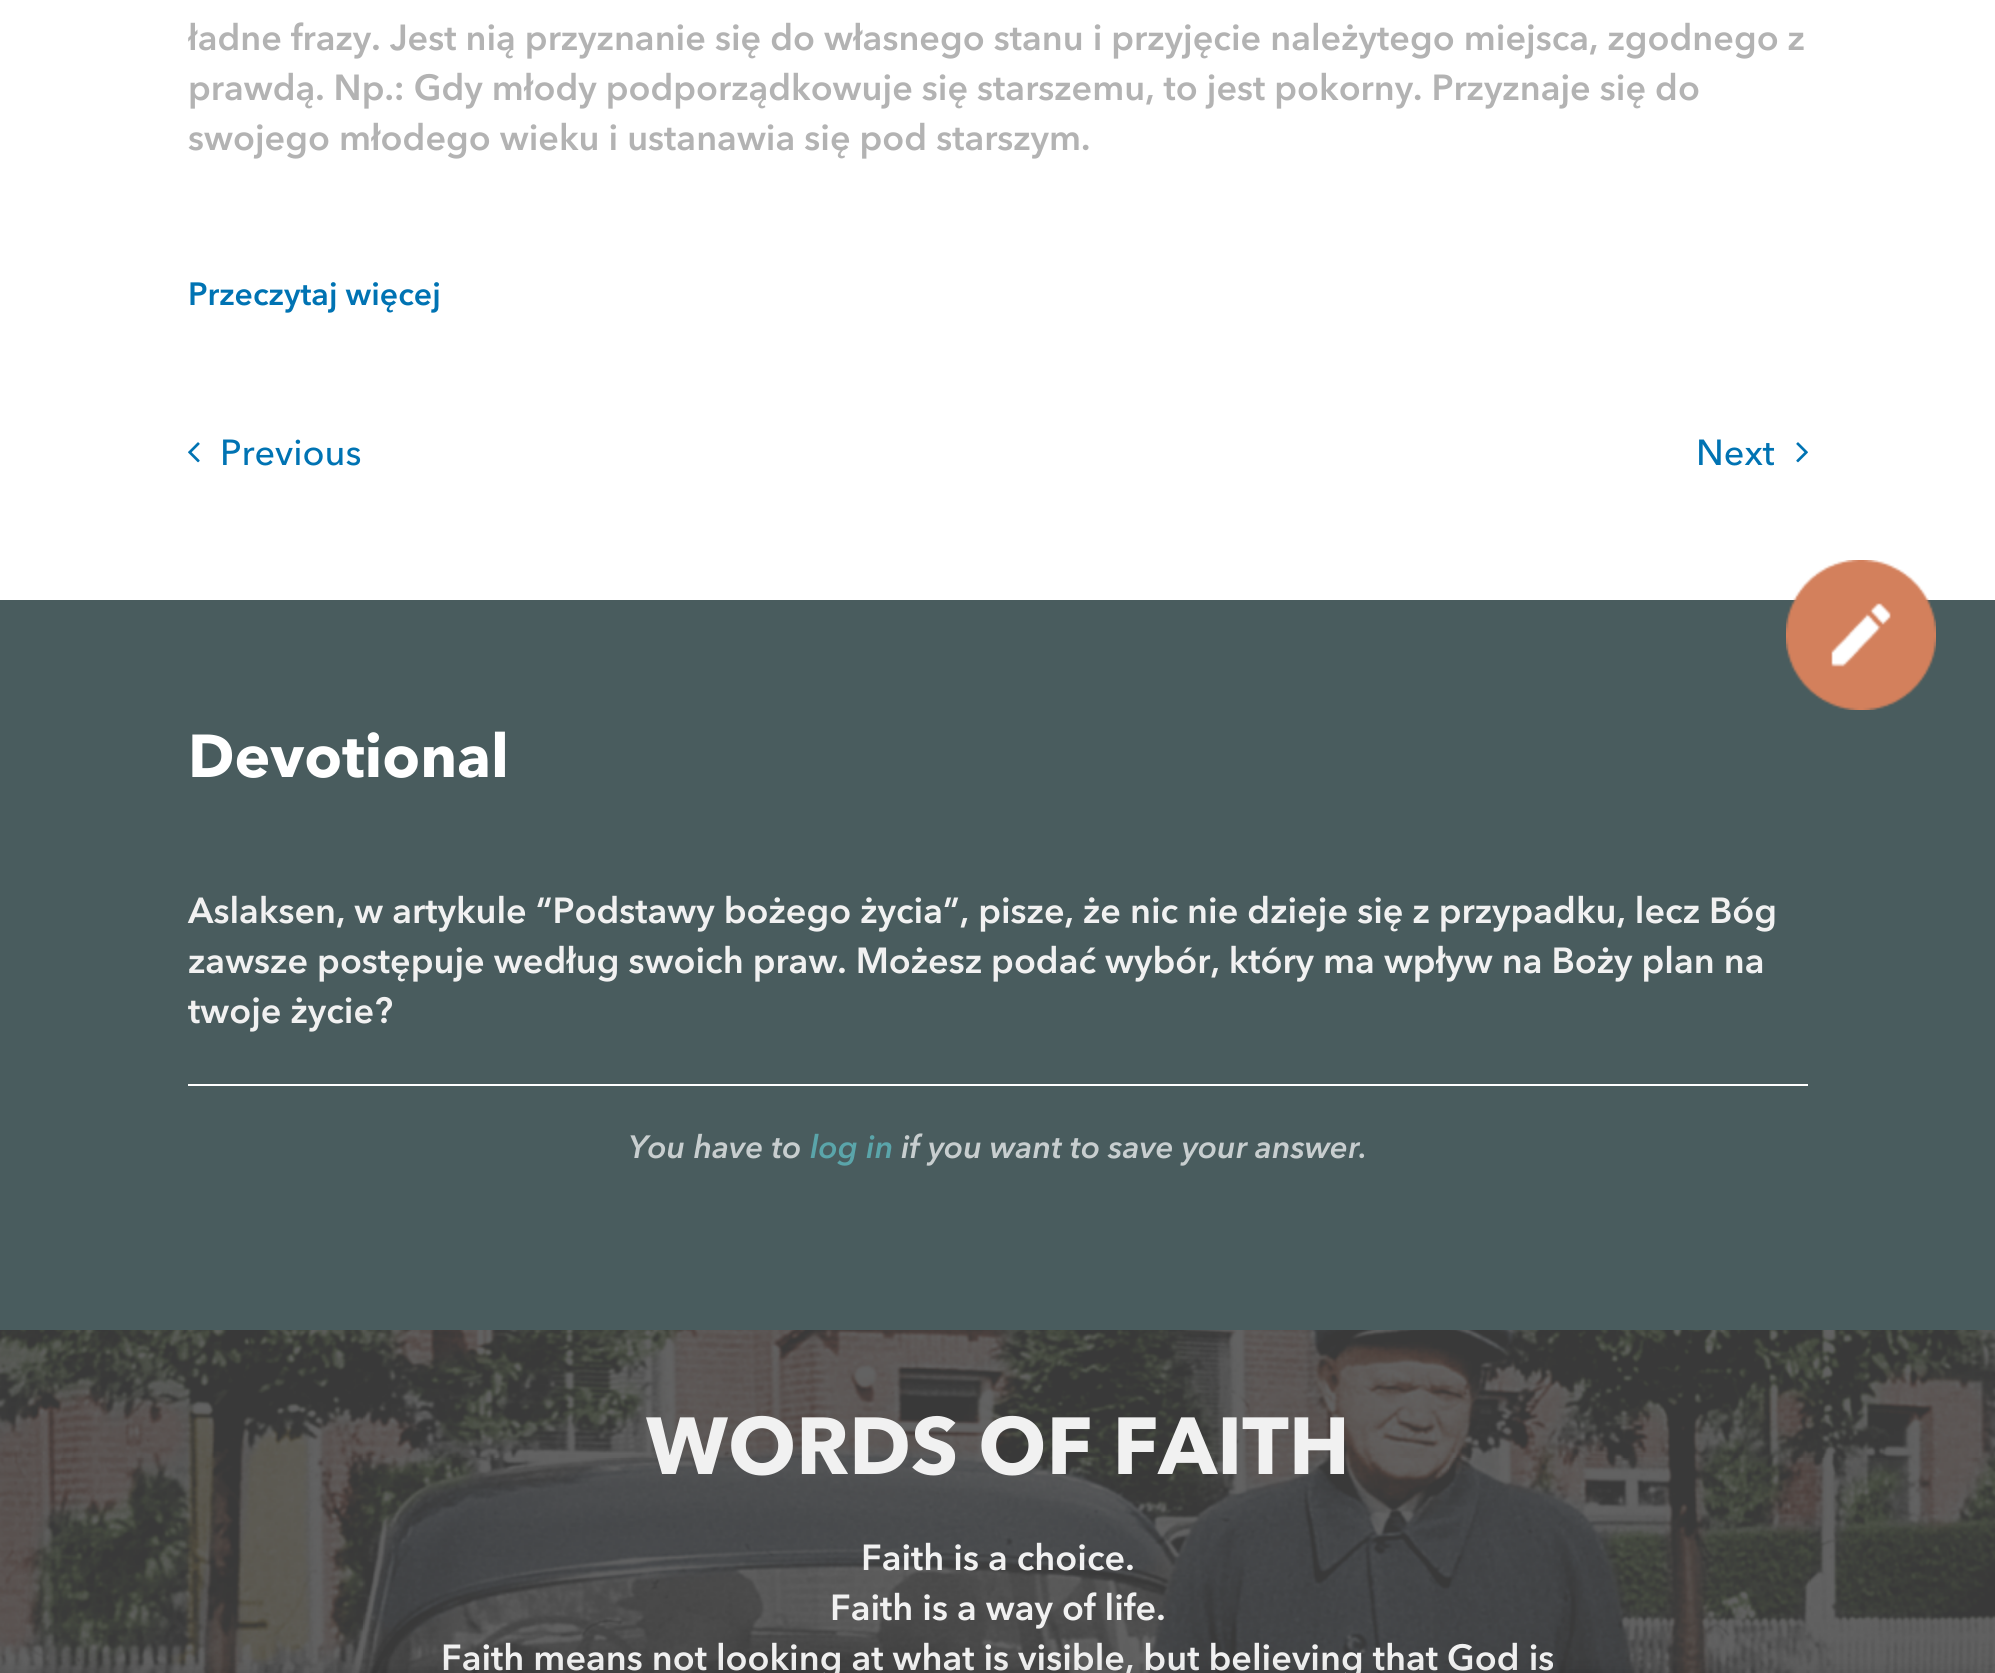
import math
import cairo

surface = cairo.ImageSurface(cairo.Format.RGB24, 1995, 1673)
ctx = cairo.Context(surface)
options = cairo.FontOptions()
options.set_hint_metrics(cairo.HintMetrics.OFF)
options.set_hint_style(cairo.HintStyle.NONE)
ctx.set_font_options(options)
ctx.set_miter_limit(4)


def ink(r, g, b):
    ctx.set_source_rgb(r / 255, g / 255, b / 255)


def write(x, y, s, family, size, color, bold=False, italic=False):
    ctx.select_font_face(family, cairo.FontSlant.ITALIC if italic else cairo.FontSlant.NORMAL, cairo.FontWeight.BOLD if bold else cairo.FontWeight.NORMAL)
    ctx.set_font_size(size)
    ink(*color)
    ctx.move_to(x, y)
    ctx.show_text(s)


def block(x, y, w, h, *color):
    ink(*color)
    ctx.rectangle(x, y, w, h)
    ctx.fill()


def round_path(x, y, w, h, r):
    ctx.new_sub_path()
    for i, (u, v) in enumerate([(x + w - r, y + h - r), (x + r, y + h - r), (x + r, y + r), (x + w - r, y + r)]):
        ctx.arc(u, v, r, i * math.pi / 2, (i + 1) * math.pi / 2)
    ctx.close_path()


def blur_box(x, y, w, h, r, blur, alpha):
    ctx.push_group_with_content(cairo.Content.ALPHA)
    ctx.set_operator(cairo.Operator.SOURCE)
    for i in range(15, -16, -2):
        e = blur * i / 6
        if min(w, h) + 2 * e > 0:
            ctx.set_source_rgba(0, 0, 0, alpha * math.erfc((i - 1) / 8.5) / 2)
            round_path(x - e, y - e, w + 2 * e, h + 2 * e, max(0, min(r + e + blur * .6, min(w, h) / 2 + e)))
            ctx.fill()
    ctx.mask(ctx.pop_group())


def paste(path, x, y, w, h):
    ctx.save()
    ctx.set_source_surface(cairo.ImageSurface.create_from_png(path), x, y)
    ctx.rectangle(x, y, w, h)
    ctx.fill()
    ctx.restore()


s1 = dict(family="Avenir Next SemiBold", size=36, color=(179, 179, 179))
s2 = dict(family="Avenir Next SemiBold", size=32, color=(0, 115, 179))
s3 = dict(family="Avenir Next Medium", size=36, color=(0, 115, 179))
s4 = dict(family="Avenir Next", size=60, color=(255, 255, 255), bold=True)
s5 = dict(family="Avenir Next SemiBold", size=36, color=(241, 241, 241))
s6 = dict(family="Avenir Next SemiBold", size=32, color=(200, 206, 207), italic=True)
s7 = dict(family="Avenir Next SemiBold", size=32, color=(90, 165, 170), italic=True)
s8 = dict(family="Avenir Next", size=80, color=(241, 241, 241), bold=True)

ink(255, 255, 255)
ctx.paint()
write(188, 50, "ładne frazy. Jest nią przyznanie się do własnego stanu i przyjęcie należytego miejsca, zgodnego z", **s1)
write(188, 100, "prawdą. Np.: Gdy młody podporządkowuje się starszemu, to jest pokorny. Przyznaje się do", **s1)
write(188, 150, "swojego młodego wieku i ustanawia się pod starszym.", **s1)
write(188, 305, "Przeczytaj więcej", **s2)
paste("pic1.png", 188, 442, 12, 21)
write(220, 465, "Previous", **s3)
write(1696, 465, "Next", **s3)
paste("pic2.png", 1796, 442, 12, 21)
block(0, 600, 1995, 730, 73, 92, 94)
paste("pic3.png", 1786, 560, 150, 150)
write(188, 777, "Devotional", **s4)
write(188, 923, "Aslaksen, w artykule “Podstawy bożego życia”, pisze, że nic nie dzieje się z przypadku, lecz Bóg", **s5)
write(188, 973, "zawsze postępuje według swoich praw. Możesz podać wybór, który ma wpływ na Boży plan na", **s5)
write(188, 1023, "twoje życie?", **s5)
block(188, 1084, 1620, 2, 255, 255, 255)
write(629, 1158, "You have to", **s6)
write(810, 1158, "log in", **s7)
write(901, 1158, "if you want to save your answer.", **s6)
block(0, 1330, 1995, 343, 59, 59, 59)
paste("pic4.png", 0, 1330, 1995, 343)
write(646, 1474, "WORDS OF FAITH", **s8)
write(861, 1570, "Faith is a choice.", **s5)
write(830, 1620, "Faith is a way of life.", **s5)
write(441, 1670, "Faith means not looking at what is visible, but believing that God is", **s5)
ink(0, 0, 0)
blur_box(0, 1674, 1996, 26, 0, 9, 0.14)
surface.write_to_png("screenshot.png")
